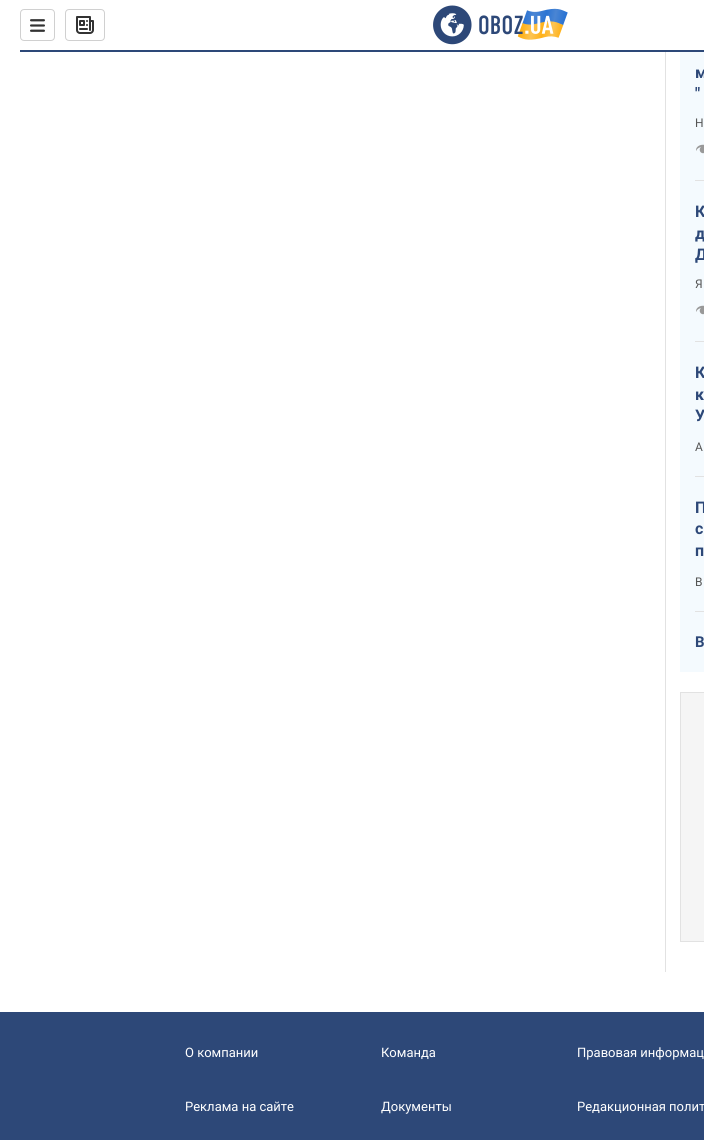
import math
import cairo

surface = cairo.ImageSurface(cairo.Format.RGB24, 704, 1140)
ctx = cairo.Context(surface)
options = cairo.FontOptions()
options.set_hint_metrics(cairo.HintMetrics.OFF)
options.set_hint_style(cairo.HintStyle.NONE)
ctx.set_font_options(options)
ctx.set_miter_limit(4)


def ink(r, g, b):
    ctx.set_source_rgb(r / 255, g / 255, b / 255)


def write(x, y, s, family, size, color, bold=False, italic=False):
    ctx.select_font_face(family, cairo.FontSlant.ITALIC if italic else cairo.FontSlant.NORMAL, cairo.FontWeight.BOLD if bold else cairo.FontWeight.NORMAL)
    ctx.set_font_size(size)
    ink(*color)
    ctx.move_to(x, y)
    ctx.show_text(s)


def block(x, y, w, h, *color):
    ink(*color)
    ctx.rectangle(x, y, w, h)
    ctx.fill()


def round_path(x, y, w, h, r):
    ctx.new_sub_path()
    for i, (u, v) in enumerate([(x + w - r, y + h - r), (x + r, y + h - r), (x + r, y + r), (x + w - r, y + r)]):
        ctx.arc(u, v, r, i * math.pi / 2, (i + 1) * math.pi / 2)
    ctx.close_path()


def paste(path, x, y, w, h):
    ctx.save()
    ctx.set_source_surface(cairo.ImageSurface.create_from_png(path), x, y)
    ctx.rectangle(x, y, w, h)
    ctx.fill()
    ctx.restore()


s1 = dict(family="Roboto", size=16, color=(45, 72, 120), bold=True)
s2 = dict(family="Roboto", size=12, color=(85, 85, 85))
s3 = dict(family="Roboto", size=15, color=(45, 72, 120), bold=True)
s4 = dict(family="Roboto", size=13, color=(255, 255, 255))

ink(255, 255, 255)
ctx.paint()
block(20, 50, 684, 2, 45, 72, 120)
round_path(20.5, 9.5, 34, 31, 3.5)
ink(208, 208, 208)
ctx.set_line_width(1)
ctx.stroke()
paste("pic1.png", 30, 19, 15, 13)
round_path(65.5, 9.5, 39, 31, 3.5)
ctx.stroke()
paste("pic2.png", 76, 16, 18, 18)
paste("pic3.png", 433, 5, 135, 40)
block(665, 52, 1, 920, 226, 226, 226)
block(680, 52, 24, 620, 244, 250, 254)
block(695, 180, 9, 1, 226, 226, 226)
write(695, 78, "м", **s1)
write(695, 99, "\"", **s1)
write(695, 127, "Н", **s2)
paste("pic4.png", 696, 144, 8, 10)
block(695, 341, 9, 1, 226, 226, 226)
write(695, 217, "К", **s1)
write(695, 239, "д", **s1)
write(695, 260, "Д", **s1)
write(695, 288, "Я", **s2)
paste("pic4.png", 696, 305, 8, 10)
block(695, 476, 9, 1, 226, 226, 226)
write(695, 378, "К", **s1)
write(695, 400, "к", **s1)
write(695, 421, "У", **s1)
write(695, 451, "А", **s2)
block(695, 611, 9, 1, 226, 226, 226)
write(695, 513, "П", **s1)
write(695, 534, "с", **s1)
write(695, 556, "п", **s1)
write(695, 586, "В", **s2)
write(695, 647, "В", **s3)
ink(245, 245, 245)
ctx.rectangle(680.5, 692.5, 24, 249)
ctx.fill_preserve()
ink(226, 226, 226)
ctx.stroke()
block(0, 1012, 704, 128, 45, 72, 120)
write(185, 1057, "О компании", **s4)
write(381, 1057, "Команда", **s4)
write(577, 1057, "Правовая информац", **s4)
write(185, 1111, "Реклама на сайте", **s4)
write(381, 1111, "Документы", **s4)
write(577, 1111, "Редакционная полит", **s4)
surface.write_to_png("screenshot.png")
